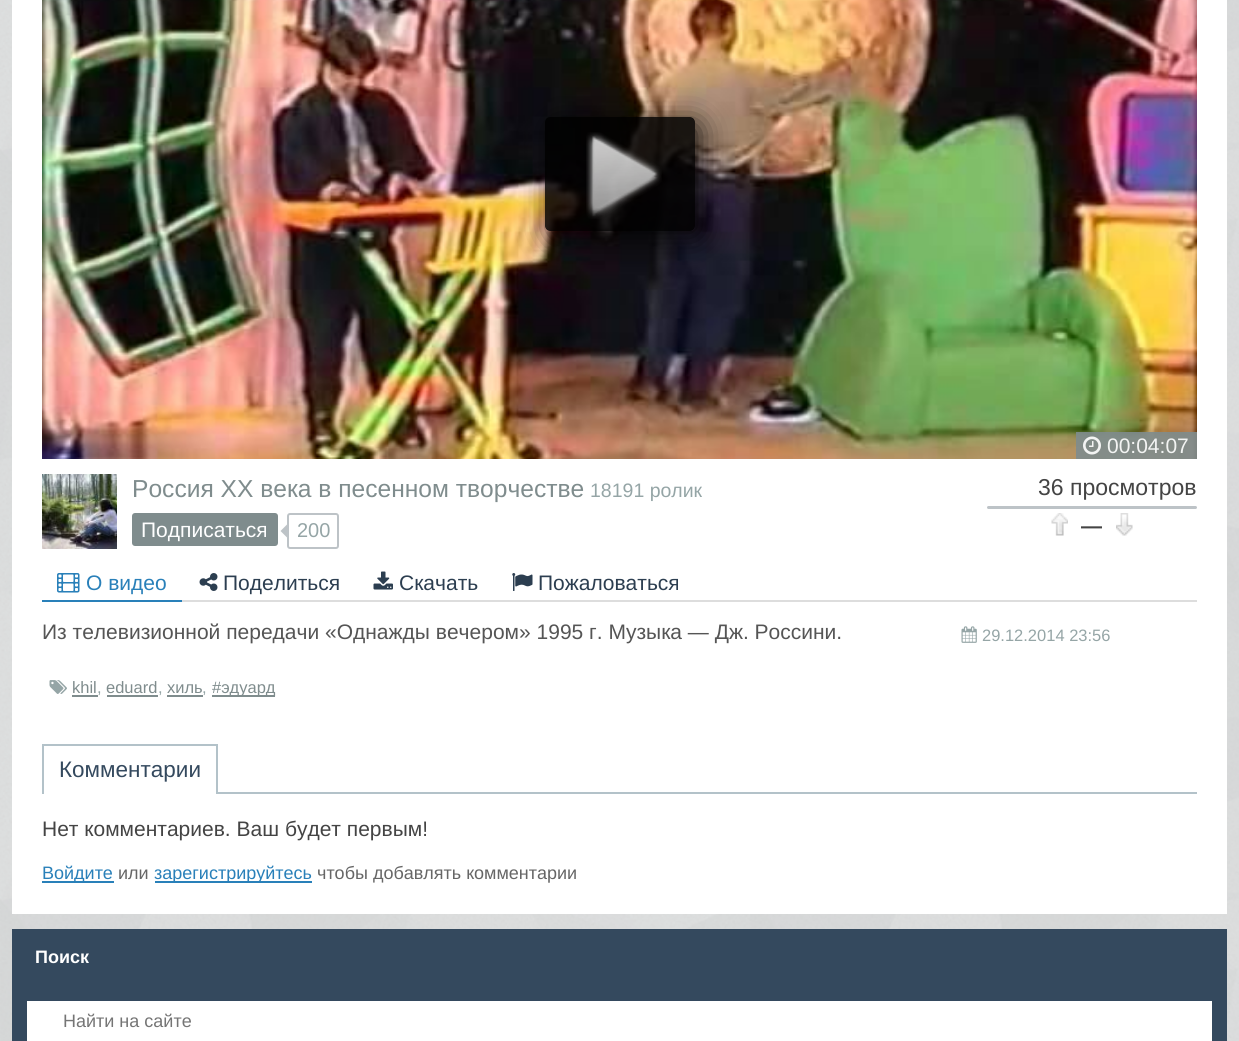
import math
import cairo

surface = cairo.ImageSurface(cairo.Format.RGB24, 1239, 1041)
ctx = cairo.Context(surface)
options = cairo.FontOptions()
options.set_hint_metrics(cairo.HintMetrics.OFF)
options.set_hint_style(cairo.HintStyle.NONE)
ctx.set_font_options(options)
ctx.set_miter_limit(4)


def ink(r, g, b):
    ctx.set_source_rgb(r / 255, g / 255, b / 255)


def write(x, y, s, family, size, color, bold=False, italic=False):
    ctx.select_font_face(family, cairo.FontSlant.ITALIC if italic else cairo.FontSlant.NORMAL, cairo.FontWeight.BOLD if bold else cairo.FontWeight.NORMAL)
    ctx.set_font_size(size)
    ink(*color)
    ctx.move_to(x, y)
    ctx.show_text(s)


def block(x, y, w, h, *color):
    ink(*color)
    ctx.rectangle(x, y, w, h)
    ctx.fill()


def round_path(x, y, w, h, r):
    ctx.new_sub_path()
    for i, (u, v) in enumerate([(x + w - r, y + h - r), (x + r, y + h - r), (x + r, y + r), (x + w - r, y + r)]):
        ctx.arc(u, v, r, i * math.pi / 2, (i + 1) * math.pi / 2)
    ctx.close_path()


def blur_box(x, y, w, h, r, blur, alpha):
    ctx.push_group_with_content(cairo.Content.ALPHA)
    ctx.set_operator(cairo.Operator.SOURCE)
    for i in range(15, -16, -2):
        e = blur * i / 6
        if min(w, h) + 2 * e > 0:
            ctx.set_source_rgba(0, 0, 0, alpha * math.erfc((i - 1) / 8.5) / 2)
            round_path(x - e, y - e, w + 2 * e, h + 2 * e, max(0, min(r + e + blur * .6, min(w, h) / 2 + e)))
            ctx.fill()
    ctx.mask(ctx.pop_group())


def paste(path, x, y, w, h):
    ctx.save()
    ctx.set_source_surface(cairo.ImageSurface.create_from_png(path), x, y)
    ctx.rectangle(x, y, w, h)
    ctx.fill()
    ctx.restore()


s1 = dict(family="Liberation Sans", size=21, color=(243, 244, 243))
s2 = dict(family="Liberation Sans", size=24.6, color=(127, 140, 141))
s3 = dict(family="Liberation Sans", size=19.5, color=(149, 165, 166))
s4 = dict(family="Liberation Sans", size=21, color=(255, 255, 255))
s5 = dict(family="Liberation Sans", size=20, color=(149, 165, 166))
s6 = dict(family="Liberation Sans", size=23, color=(68, 68, 68))
s7 = dict(family="Liberation Sans", size=21, color=(68, 68, 68), bold=True)
s8 = dict(family="Liberation Sans", size=21, color=(41, 128, 185))
s9 = dict(family="Liberation Sans", size=21, color=(44, 62, 80))
s10 = dict(family="Liberation Sans", size=21, color=(85, 85, 85))
s11 = dict(family="Liberation Sans", size=16.5, color=(127, 140, 141))
s12 = dict(family="Liberation Sans", size=16.5, color=(149, 165, 166))
s13 = dict(family="Liberation Sans", size=22.5, color=(52, 73, 94))
s14 = dict(family="Liberation Sans", size=21, color=(68, 68, 68))
s15 = dict(family="Liberation Sans", size=18, color=(41, 128, 185))
s16 = dict(family="Liberation Sans", size=18, color=(102, 102, 102))
s17 = dict(family="Liberation Sans", size=18, color=(255, 255, 255), bold=True)
s18 = dict(family="Liberation Sans", size=18, color=(117, 117, 117))

ink(255, 255, 255)
ctx.paint()
paste("pic1.png", 0, 0, 1239, 1041)
block(12, 0, 1215, 914, 255, 255, 255)
paste("pic2.png", 42, 0, 1155, 459)
ctx.save()
ctx.set_fill_rule(cairo.FillRule.EVEN_ODD)
ctx.new_path()
ctx.move_to(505, 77)
ctx.line_to(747, 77)
ctx.line_to(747, 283)
ctx.line_to(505, 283)
ctx.close_path()
ctx.move_to(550, 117)
ctx.line_to(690, 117)
ctx.curve_to(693, 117, 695, 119, 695, 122)
ctx.line_to(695, 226)
ctx.curve_to(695, 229, 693, 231, 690, 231)
ctx.line_to(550, 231)
ctx.curve_to(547, 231, 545, 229, 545, 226)
ctx.line_to(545, 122)
ctx.curve_to(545, 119, 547, 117, 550, 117)
ctx.close_path()
ctx.clip()
ink(0, 0, 0)
blur_box(551, 123, 150, 114, 5, 15, 0.85)
ctx.restore()
ctx.set_source_rgba(0, 0, 0, 0.85)
round_path(545, 117, 150, 114, 5)
ctx.fill()
paste("pic3.png", 586, 132, 76, 87)
ctx.set_source_rgba(0.498, 0.549, 0.553, 0.9)
ctx.rectangle(1076, 432, 121, 27)
ctx.fill()
paste("pic4.png", 1083, 436, 18, 19)
write(1107, 453, "00:04:07", **s1)
paste("pic5.png", 42, 474, 75, 75)
write(132, 497, "Россия XX века в песенном творчестве", **s2)
write(590, 497, "18191 ролик", **s3)
ink(127, 140, 141)
round_path(132, 513, 146, 33, 3)
ctx.fill()
write(141, 537, "Подписаться", **s4)
round_path(288, 514, 50, 34, 2)
ink(189, 195, 199)
ctx.stroke()
ctx.new_path()
ctx.move_to(288, 523.5)
ctx.line_to(288, 538.5)
ctx.line_to(280.5, 531)
ctx.close_path()
ctx.fill()
write(297, 537, "200", **s5)
write(1038, 495, "36 просмотров", **s6)
ink(189, 195, 199)
round_path(987, 506, 210, 3, 1.5)
ctx.fill()
paste("pic6.png", 1051, 513, 17, 23)
write(1081, 533, "—", **s7)
paste("pic7.png", 1116, 513, 17, 23)
block(182, 600, 1015, 2, 221, 221, 221)
block(42, 600, 140, 2, 41, 128, 185)
paste("pic8.png", 57, 573, 23, 20)
write(86, 590, "О видео", **s8)
paste("pic9.png", 199, 573, 19, 18)
write(223, 590, "Поделиться", **s9)
paste("pic10.png", 373, 571, 20, 19)
write(399, 590, "Скачать", **s9)
paste("pic11.png", 512, 573, 21, 18)
write(538, 590, "Пожаловаться", **s9)
write(42, 639, "Из телевизионной передачи «Однажды вечером» 1995 г. Музыка — Дж. Россини.", **s10)
paste("pic12.png", 49, 680, 18, 14)
write(72, 693, "khil", **s11)
block(72, 695, 26, 2, 127, 140, 141)
write(97, 693, ",", **s12)
write(106, 693, "eduard", **s11)
block(107, 695, 51, 2, 127, 140, 141)
write(158, 693, ",", **s12)
write(167, 693, "хиль", **s11)
block(167, 695, 36, 2, 127, 140, 141)
write(202, 693, ",", **s12)
block(212, 695, 63, 2, 127, 140, 141)
write(212, 693, "#эдуард", **s11)
paste("pic13.png", 961, 626, 16, 17)
write(982, 641, "29.12.2014 23:56", **s12)
block(218, 792, 979, 2, 179, 194, 201)
block(42, 744, 176, 2, 179, 194, 201)
block(216, 744, 2, 50, 179, 194, 201)
block(42, 744, 2, 50, 179, 194, 201)
write(59, 777, "Комментарии", **s13)
write(42, 836, "Нет комментариев. Ваш будет первым!", **s14)
block(42, 881, 72, 2, 41, 128, 185)
write(42, 879, "Войдите", **s15)
write(118, 879, "или", **s16)
block(155, 881, 157, 2, 41, 128, 185)
write(154, 879, "зарегистрируйтесь", **s15)
write(317, 879, "чтобы добавлять комментарии", **s16)
block(12, 929, 1215, 112, 52, 73, 94)
write(35, 963, "Поиск", **s17)
block(27, 1001, 1185, 40, 255, 255, 255)
write(63, 1027, "Найти на сайте", **s18)
surface.write_to_png("screenshot.png")
